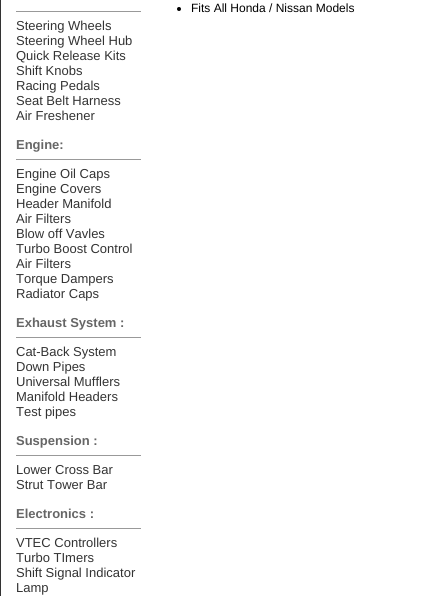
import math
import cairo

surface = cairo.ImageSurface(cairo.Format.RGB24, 438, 596)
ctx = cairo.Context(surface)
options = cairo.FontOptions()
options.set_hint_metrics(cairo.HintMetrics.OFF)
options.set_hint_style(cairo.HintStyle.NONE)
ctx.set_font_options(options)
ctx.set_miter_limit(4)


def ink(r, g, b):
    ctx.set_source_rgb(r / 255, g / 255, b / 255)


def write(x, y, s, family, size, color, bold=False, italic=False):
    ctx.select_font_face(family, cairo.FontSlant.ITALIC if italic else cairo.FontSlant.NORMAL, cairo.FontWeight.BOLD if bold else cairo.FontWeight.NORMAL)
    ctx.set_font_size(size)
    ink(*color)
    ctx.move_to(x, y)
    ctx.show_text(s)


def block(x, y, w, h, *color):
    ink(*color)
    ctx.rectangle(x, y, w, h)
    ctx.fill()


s1 = dict(family="Liberation Sans", size=12, color=(0, 0, 0))
s2 = dict(family="Liberation Sans", size=13, color=(51, 51, 51))
s3 = dict(family="Liberation Sans", size=13, color=(102, 102, 102), bold=True)

ink(255, 255, 255)
ctx.paint()
ctx.rectangle(0.5, -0.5, 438, 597)
ink(51, 51, 51)
ctx.set_line_width(1)
ctx.stroke()
ink(0, 0, 0)
ctx.arc(179, 9, 2, 0, 2 * math.pi)
ctx.fill()
write(191, 12, "Fits All Honda / Nissan Models", **s1)
block(16, 11, 125, 1, 153, 153, 153)
write(16, 30, "Steering Wheels", **s2)
write(16, 45, "Steering Wheel Hub", **s2)
write(16, 60, "Quick Release Kits", **s2)
write(16, 75, "Shift Knobs", **s2)
write(16, 90, "Racing Pedals", **s2)
write(16, 105, "Seat Belt Harness", **s2)
write(16, 120, "Air Freshener", **s2)
write(16, 149, "Engine:", **s3)
block(16, 159, 125, 1, 153, 153, 153)
write(16, 178, "Engine Oil Caps", **s2)
write(16, 193, "Engine Covers", **s2)
write(16, 208, "Header Manifold", **s2)
write(16, 223, "Air Filters", **s2)
write(16, 238, "Blow off Vavles", **s2)
write(16, 253, "Turbo Boost Control", **s2)
write(16, 268, "Air Filters", **s2)
write(16, 283, "Torque Dampers", **s2)
write(16, 298, "Radiator Caps", **s2)
write(16, 327, "Exhaust System :", **s3)
block(16, 337, 125, 1, 153, 153, 153)
write(16, 356, "Cat-Back System", **s2)
write(16, 371, "Down Pipes", **s2)
write(16, 386, "Universal Mufflers", **s2)
write(16, 401, "Manifold Headers", **s2)
write(16, 416, "Test pipes", **s2)
write(16, 445, "Suspension :", **s3)
block(16, 455, 125, 1, 153, 153, 153)
write(16, 474, "Lower Cross Bar", **s2)
write(16, 489, "Strut Tower Bar", **s2)
write(16, 518, "Electronics :", **s3)
block(16, 528, 125, 1, 153, 153, 153)
write(16, 547, "VTEC Controllers", **s2)
write(16, 562, "Turbo TImers", **s2)
write(16, 577, "Shift Signal Indicator", **s2)
write(16, 592, "Lamp", **s2)
surface.write_to_png("screenshot.png")
